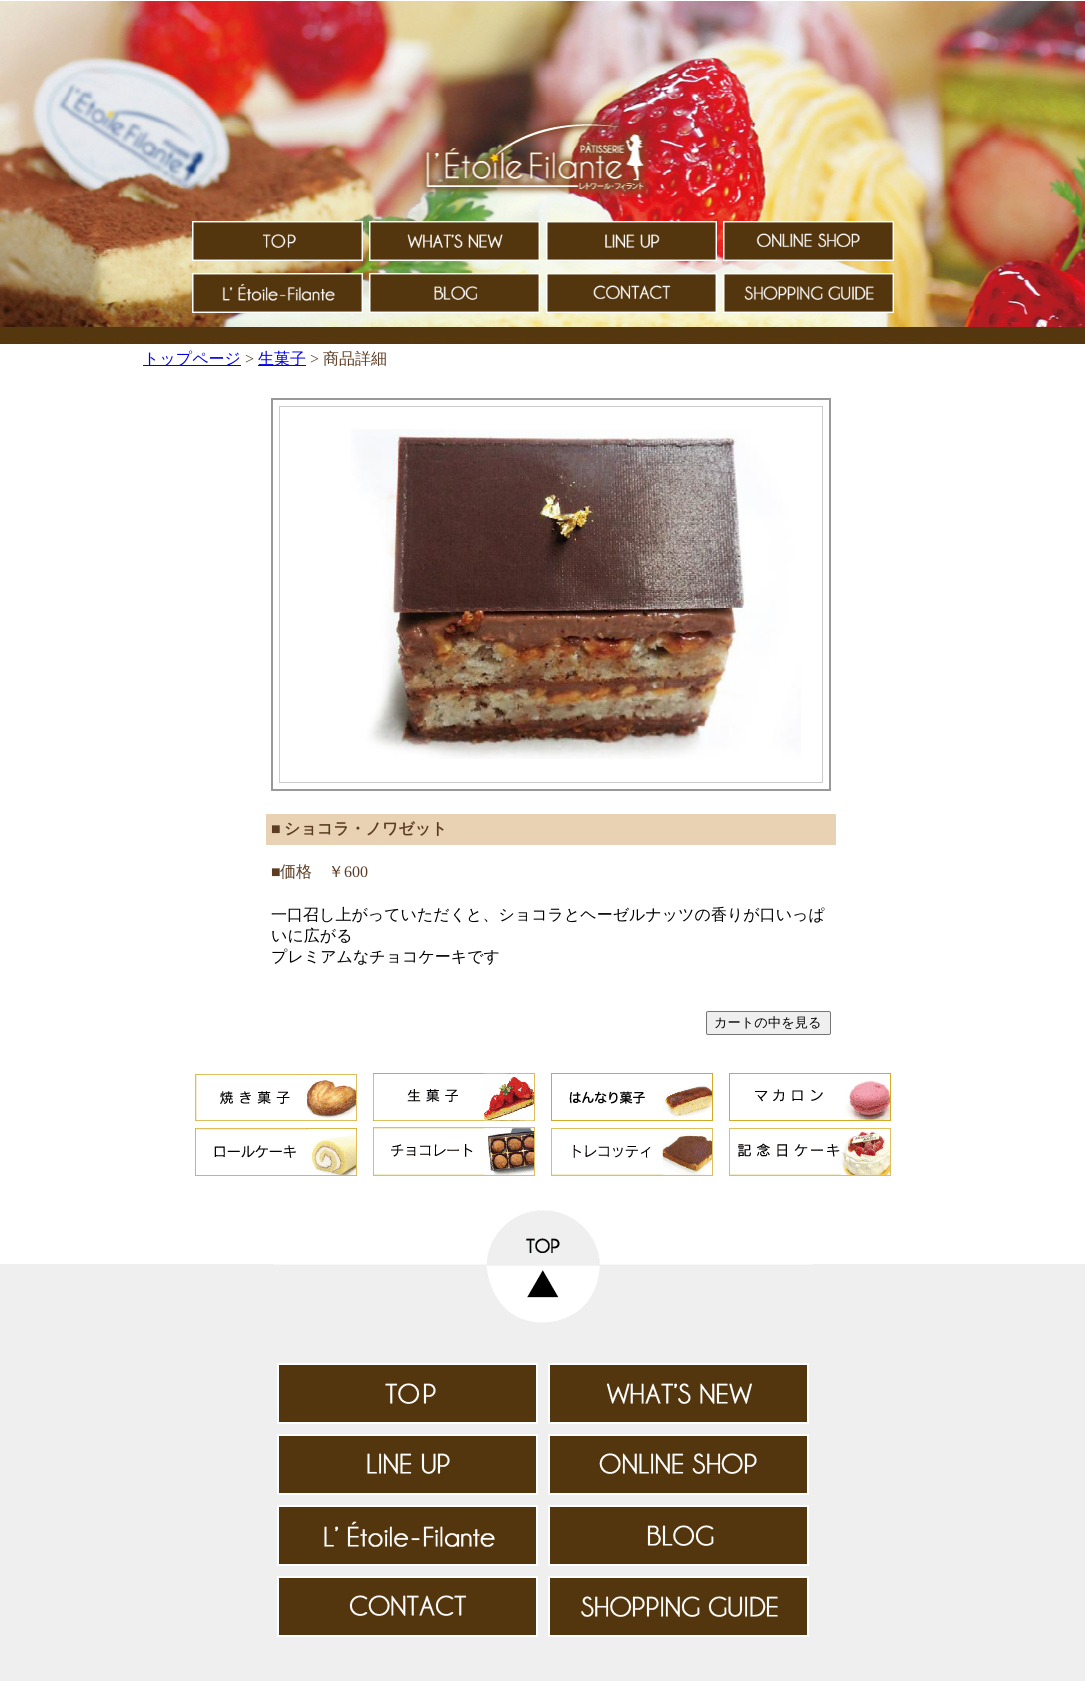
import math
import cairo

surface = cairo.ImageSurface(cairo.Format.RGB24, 1085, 1681)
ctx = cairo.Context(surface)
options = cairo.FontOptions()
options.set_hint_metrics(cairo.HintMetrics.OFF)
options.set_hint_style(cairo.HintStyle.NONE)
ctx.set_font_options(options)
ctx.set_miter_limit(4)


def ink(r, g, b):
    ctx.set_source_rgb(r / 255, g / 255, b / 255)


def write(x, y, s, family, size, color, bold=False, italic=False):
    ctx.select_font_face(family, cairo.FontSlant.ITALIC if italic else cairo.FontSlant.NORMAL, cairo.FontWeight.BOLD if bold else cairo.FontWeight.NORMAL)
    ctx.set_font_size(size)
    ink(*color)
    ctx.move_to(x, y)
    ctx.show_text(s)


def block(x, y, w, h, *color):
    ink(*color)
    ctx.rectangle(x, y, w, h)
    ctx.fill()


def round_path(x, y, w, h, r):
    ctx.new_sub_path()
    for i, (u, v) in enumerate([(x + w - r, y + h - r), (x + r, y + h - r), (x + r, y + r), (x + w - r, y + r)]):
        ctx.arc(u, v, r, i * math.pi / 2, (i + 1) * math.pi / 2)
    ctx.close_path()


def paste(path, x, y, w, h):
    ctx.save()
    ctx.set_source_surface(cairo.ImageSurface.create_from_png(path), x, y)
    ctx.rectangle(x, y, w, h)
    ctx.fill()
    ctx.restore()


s1 = dict(family="WenQuanYi Zen Hei Medium", size=16, color=(0, 0, 238))
s2 = dict(family="Liberation Serif", size=16, color=(92, 61, 36))
s3 = dict(family="WenQuanYi Zen Hei Medium", size=16, color=(92, 61, 36))
s4 = dict(family="Liberation Serif", size=16, color=(92, 61, 36), bold=True)
s5 = dict(family="WenQuanYi Zen Hei", size=16, color=(92, 61, 36), bold=True)
s6 = dict(family="WenQuanYi Zen Hei Medium", size=16, color=(0, 0, 0))
s7 = dict(family="WenQuanYi Zen Hei Medium", size=13.25, color=(0, 0, 0))

ink(255, 255, 255)
ctx.paint()
paste("pic1.png", 0, 0, 1085, 344)
paste("pic2.png", 192, 221, 171, 40)
paste("pic3.png", 369, 221, 171, 40)
paste("pic4.png", 546, 221, 171, 40)
paste("pic5.png", 723, 221, 171, 40)
paste("pic6.png", 192, 273, 171, 40)
paste("pic7.png", 369, 273, 171, 40)
paste("pic8.png", 546, 273, 171, 40)
paste("pic9.png", 723, 273, 171, 40)
block(143, 365, 98, 1, 0, 0, 238)
write(143, 364, "トップページ", **s1)
write(245, 364, ">", **s2)
block(258, 365, 48, 1, 0, 0, 238)
write(258, 364, "生菓子", **s1)
write(310, 364, ">", **s2)
write(323, 364, "商品詳細", **s3)
ctx.rectangle(272, 399, 558, 391)
ink(153, 153, 153)
ctx.stroke()
ctx.rectangle(279.5, 406.5, 543, 376)
ink(204, 204, 204)
ctx.set_line_width(1)
ctx.stroke()
paste("pic10.png", 351, 429, 450, 330)
block(266, 814, 570, 31, 233, 209, 180)
write(271, 834, "■", **s4)
write(284, 834, "ショコラ・ノワゼット", **s5)
write(271, 877, "■", **s2)
write(280, 877, "価格　￥", **s3)
write(344, 877, "600", **s2)
write(271, 920, "一口召し上がっていただくと、ショコラとヘーゼルナッツの香りが口いっぱ", **s6)
write(271, 941, "いに広がる", **s6)
write(271, 962, "プレミアムなチョコケーキです", **s6)
ink(239, 239, 239)
round_path(706.5, 1011.5, 124, 23, 1.5)
ctx.fill_preserve()
ink(118, 118, 118)
ctx.stroke()
write(714, 1027, "カートの中を見る", **s7)
paste("pic11.png", 195, 1074, 162, 47)
paste("pic12.png", 373, 1073, 162, 48)
paste("pic13.png", 551, 1073, 162, 48)
paste("pic14.png", 729, 1073, 162, 48)
paste("pic15.png", 195, 1128, 162, 48)
paste("pic16.png", 373, 1127, 162, 49)
paste("pic17.png", 551, 1128, 162, 48)
paste("pic18.png", 729, 1128, 162, 48)
block(0, 1264, 1085, 417, 239, 239, 239)
paste("pic19.png", 273, 1210, 540, 113)
paste("pic20.png", 277, 1363, 261, 61)
paste("pic21.png", 548, 1363, 261, 61)
paste("pic22.png", 277, 1434, 261, 61)
paste("pic23.png", 548, 1434, 261, 61)
paste("pic24.png", 277, 1505, 261, 61)
paste("pic25.png", 548, 1505, 261, 61)
paste("pic26.png", 277, 1576, 261, 61)
paste("pic27.png", 548, 1576, 261, 61)
surface.write_to_png("screenshot.png")
